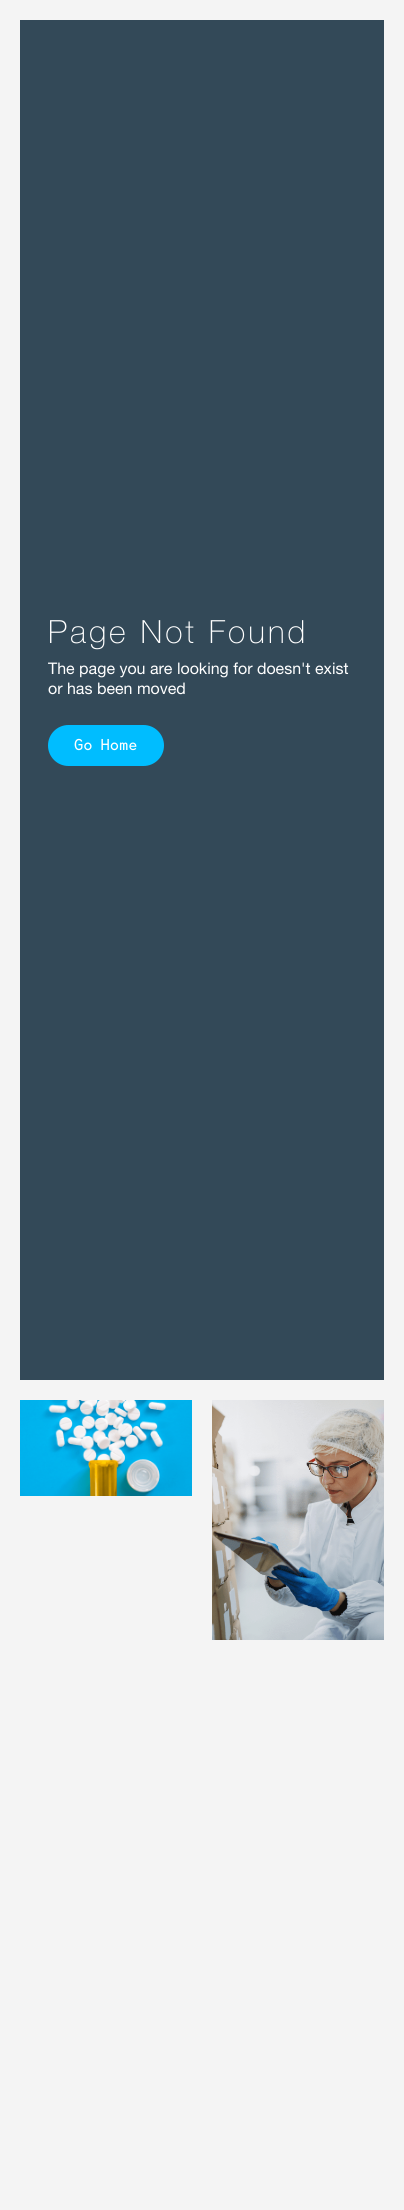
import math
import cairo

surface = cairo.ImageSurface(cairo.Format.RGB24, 404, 2210)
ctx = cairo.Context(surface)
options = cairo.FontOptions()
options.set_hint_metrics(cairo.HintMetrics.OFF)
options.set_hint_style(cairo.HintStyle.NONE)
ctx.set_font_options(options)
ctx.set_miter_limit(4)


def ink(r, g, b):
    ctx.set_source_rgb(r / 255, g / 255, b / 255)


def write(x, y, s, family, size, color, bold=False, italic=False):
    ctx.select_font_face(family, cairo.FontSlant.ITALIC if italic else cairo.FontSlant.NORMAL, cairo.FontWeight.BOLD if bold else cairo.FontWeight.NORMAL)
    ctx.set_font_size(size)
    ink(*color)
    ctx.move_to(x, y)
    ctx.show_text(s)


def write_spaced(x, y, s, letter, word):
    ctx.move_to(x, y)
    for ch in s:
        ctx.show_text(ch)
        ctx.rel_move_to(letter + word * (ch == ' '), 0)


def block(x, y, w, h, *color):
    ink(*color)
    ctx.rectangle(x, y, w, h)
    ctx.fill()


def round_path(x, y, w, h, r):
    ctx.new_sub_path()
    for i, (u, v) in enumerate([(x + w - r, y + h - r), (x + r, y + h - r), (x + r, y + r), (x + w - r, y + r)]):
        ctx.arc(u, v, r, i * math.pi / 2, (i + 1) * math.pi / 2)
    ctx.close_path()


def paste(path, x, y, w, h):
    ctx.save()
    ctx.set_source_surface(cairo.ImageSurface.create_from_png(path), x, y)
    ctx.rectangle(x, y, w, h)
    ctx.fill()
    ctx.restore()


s1 = dict(family="Helvetica Neue", size=16, color=(255, 255, 255))
s2 = dict(family="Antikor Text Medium", size=15, color=(255, 255, 255))

ink(244, 244, 244)
ctx.paint()
block(20, 20, 364, 1360, 51, 73, 88)
ctx.select_font_face("Helvetica Neue ExtraLight")
ctx.set_font_size(32)
ink(255, 255, 255)
write_spaced(48, 643, "Page Not Found", 3, 0)
write(48, 674, "The page you are looking for doesn't exist", **s1)
write(48, 694, "or has been moved", **s1)
ink(0, 189, 255)
round_path(49, 726, 114, 39, 19.5)
ctx.fill_preserve()
ctx.stroke()
write(74, 750, "Go Home", **s2)
paste("pic1.png", 20, 1400, 172, 96)
paste("pic2.png", 212, 1400, 172, 240)
surface.write_to_png("screenshot.png")
